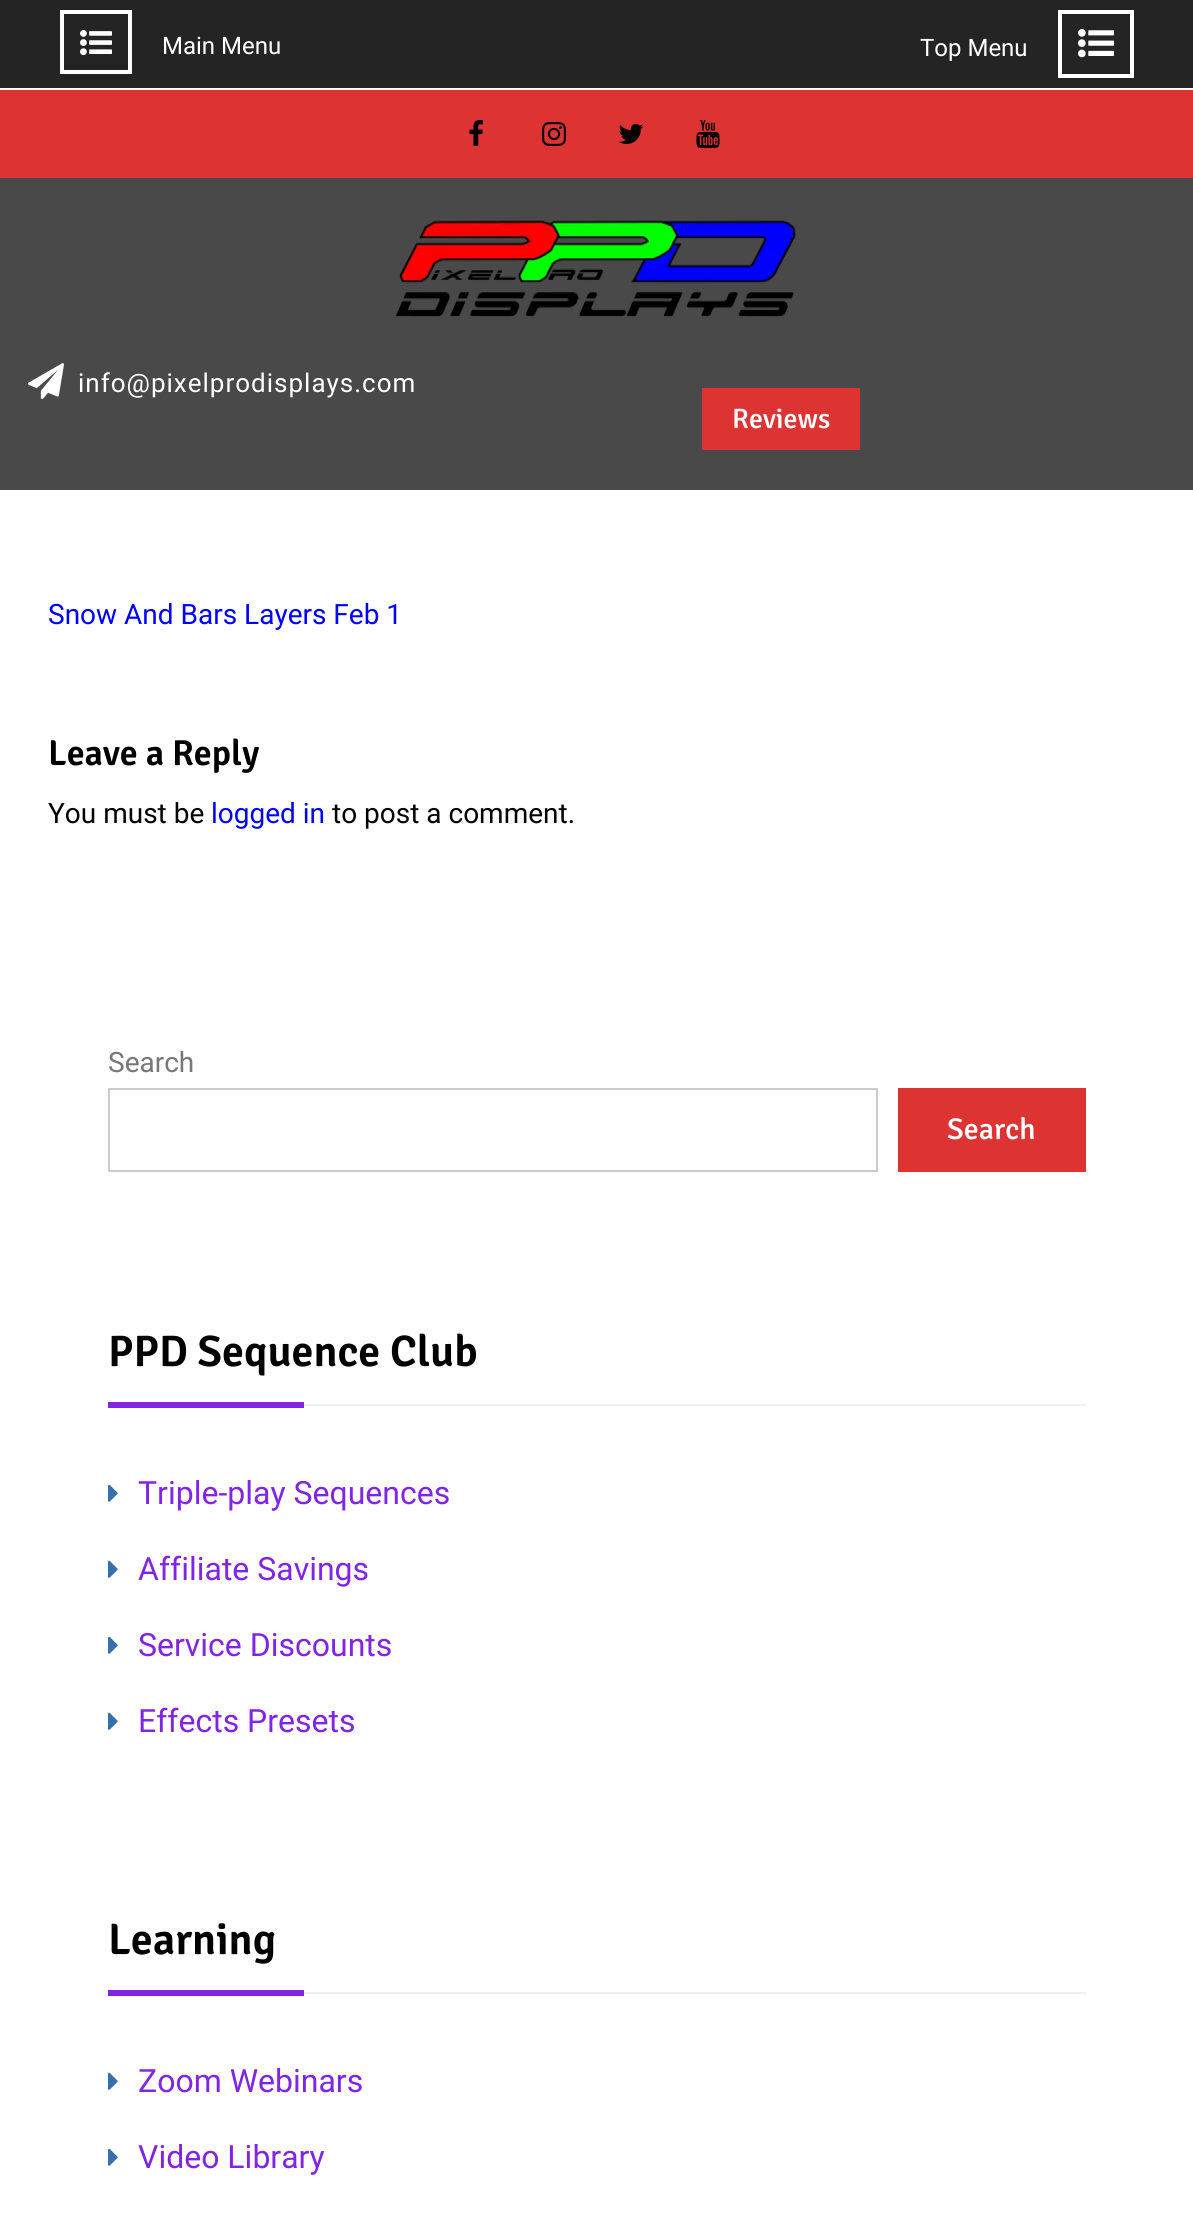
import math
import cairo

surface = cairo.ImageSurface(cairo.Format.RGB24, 1193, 2218)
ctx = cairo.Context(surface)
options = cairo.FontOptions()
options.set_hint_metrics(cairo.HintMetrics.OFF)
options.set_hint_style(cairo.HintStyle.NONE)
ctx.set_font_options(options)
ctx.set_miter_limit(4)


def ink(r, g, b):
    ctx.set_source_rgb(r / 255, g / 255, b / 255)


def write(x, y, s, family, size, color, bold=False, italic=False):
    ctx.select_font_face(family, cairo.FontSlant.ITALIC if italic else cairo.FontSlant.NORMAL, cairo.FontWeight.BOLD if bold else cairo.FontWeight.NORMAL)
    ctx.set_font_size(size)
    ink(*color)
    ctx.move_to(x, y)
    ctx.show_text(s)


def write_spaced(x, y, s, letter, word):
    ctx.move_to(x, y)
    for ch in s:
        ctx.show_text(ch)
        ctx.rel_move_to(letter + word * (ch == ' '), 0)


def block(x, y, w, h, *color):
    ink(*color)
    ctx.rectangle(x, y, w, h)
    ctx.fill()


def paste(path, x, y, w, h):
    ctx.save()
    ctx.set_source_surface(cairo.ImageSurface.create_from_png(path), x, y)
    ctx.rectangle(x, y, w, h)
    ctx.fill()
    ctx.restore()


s1 = dict(family="Roboto", size=24, color=(255, 255, 255))
s2 = dict(family="Signika Medium", size=28, color=(255, 255, 255))
s3 = dict(family="Roboto", size=28, color=(0, 0, 255))
s4 = dict(family="Signika SemiBold", size=36, color=(0, 0, 0))
s5 = dict(family="Roboto", size=28, color=(0, 0, 0))
s6 = dict(family="Roboto", size=28, color=(119, 119, 119))
s7 = dict(family="Signika Medium", size=30, color=(255, 255, 255))
s8 = dict(family="Signika SemiBold", size=44, color=(0, 0, 0))
s9 = dict(family="Roboto", size=32, color=(130, 36, 227))

ink(255, 255, 255)
ctx.paint()
block(0, 0, 1193, 88, 36, 36, 36)
ctx.rectangle(62, 12, 68, 60)
ink(255, 255, 254)
ctx.set_line_width(4)
ctx.stroke()
paste("pic1.png", 80, 30, 32, 26)
write(162, 54, "Main Menu", **s1)
write(920, 56, "Top Menu", **s1)
ctx.rectangle(1060, 12, 72, 64)
ctx.stroke()
paste("pic2.png", 1078, 29, 36, 29)
block(0, 90, 1193, 88, 221, 51, 51)
paste("pic3.png", 469, 120, 14, 26)
paste("pic4.png", 542, 122, 24, 24)
paste("pic5.png", 618, 124, 26, 20)
paste("pic6.png", 696, 120, 24, 28)
block(0, 178, 1193, 312, 73, 73, 73)
paste("pic7.png", 396, 220, 400, 97)
paste("pic8.png", 28, 363, 36, 37)
ctx.set_font_size(26)
ink(255, 255, 255)
write_spaced(78, 392, "info@pixelprodisplays.com", 1, 0)
block(702, 388, 158, 62, 221, 51, 51)
write(732, 428, "Reviews", **s2)
write(48, 624, "Snow And Bars Layers Feb 1", **s3)
write(48, 765, "Leave a Reply", **s4)
write(48, 823, "You must be", **s5)
write(211, 823, "logged in", **s3)
write(332, 823, "to post a comment.", **s5)
write(108, 1072, "Search", **s6)
ctx.rectangle(109, 1089, 768, 82)
ink(204, 204, 204)
ctx.set_line_width(2)
ctx.stroke()
block(898, 1088, 188, 84, 221, 51, 51)
write(947, 1139, "Search", **s7)
block(304, 1404, 782, 2, 241, 240, 240)
write(108, 1366, "PPD Sequence Club", **s8)
block(108, 1402, 196, 6, 130, 36, 227)
paste("pic9.png", 108, 1484, 10, 18)
write(138, 1504, "Triple-play Sequences", **s9)
paste("pic9.png", 108, 1560, 10, 18)
write(138, 1580, "Affiliate Savings", **s9)
paste("pic9.png", 108, 1636, 10, 18)
write(138, 1656, "Service Discounts", **s9)
paste("pic9.png", 108, 1712, 10, 18)
write(138, 1732, "Effects Presets", **s9)
block(304, 1992, 782, 2, 241, 240, 240)
write(108, 1954, "Learning", **s8)
block(108, 1990, 196, 6, 130, 36, 227)
paste("pic9.png", 108, 2072, 10, 18)
write(138, 2092, "Zoom Webinars", **s9)
paste("pic9.png", 108, 2148, 10, 18)
write(138, 2168, "Video Library", **s9)
surface.write_to_png("screenshot.png")
